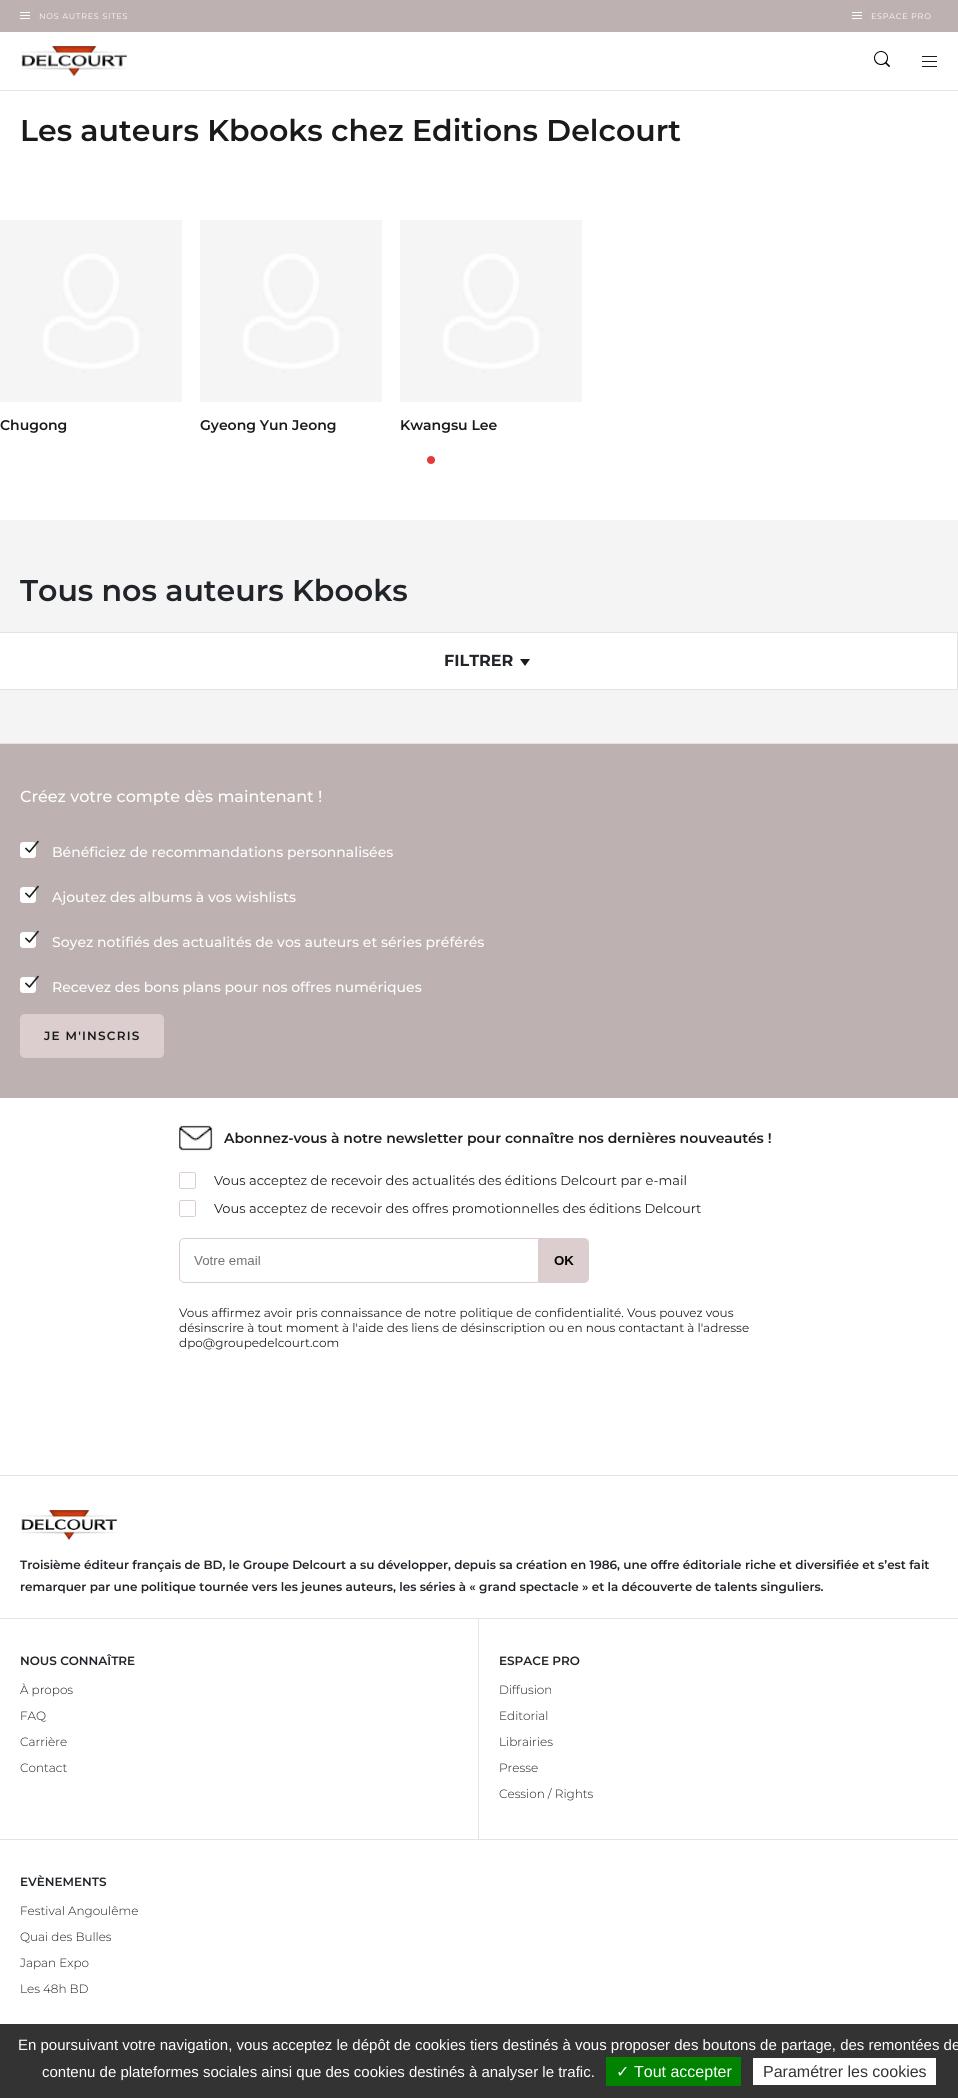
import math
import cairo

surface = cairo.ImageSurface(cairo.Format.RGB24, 958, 2098)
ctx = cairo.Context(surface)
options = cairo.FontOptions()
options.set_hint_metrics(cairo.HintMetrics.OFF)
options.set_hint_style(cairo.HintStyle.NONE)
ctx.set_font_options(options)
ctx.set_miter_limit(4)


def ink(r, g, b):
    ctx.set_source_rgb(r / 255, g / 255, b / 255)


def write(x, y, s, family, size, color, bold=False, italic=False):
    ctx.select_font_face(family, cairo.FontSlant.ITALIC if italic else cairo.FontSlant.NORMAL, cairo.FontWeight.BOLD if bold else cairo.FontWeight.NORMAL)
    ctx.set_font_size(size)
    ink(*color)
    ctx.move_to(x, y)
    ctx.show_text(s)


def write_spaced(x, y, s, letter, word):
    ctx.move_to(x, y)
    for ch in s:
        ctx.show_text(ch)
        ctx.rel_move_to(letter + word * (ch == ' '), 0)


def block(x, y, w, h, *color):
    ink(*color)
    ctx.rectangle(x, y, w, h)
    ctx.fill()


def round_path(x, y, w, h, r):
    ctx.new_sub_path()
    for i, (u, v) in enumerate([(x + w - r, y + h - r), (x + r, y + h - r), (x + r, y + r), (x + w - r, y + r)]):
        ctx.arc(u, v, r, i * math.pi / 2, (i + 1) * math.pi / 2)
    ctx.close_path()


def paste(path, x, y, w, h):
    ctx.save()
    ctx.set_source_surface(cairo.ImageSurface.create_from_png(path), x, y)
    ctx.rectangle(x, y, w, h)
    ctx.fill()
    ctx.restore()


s1 = dict(family="Montserrat SemiBold", size=30, color=(26, 26, 26))
s2 = dict(family="Montserrat SemiBold", size=14, color=(26, 26, 26))
s3 = dict(family="Montserrat SemiBold", size=30, color=(33, 37, 41))
s4 = dict(family="Montserrat", size=16, color=(33, 37, 41), bold=True)
s5 = dict(family="Montserrat Medium", size=16, color=(255, 255, 255))
s6 = dict(family="Montserrat Medium", size=14, color=(255, 255, 255))
s7 = dict(family="Montserrat SemiBold", size=12, color=(33, 37, 41))
s8 = dict(family="Montserrat Light", size=12, color=(26, 26, 26))
s9 = dict(family="Liberation Sans", size=15, color=(255, 255, 255))
s10 = dict(family="DejaVu Sans", size=16, color=(255, 255, 255))
s11 = dict(family="Liberation Sans", size=16, color=(255, 255, 255))
s12 = dict(family="Liberation Sans", size=16, color=(51, 51, 51))

ink(255, 255, 255)
ctx.paint()
block(0, 0, 958, 32, 189, 177, 177)
block(20, 15, 10, 1, 255, 255, 255)
block(20, 12, 10, 1, 255, 255, 255)
block(20, 18, 10, 1, 255, 255, 255)
ctx.select_font_face("Montserrat")
ctx.set_font_size(8)
write_spaced(39, 19, "NOS AUTRES SITES", 0.75, 0)
block(852, 15, 10, 1, 255, 255, 255)
block(852, 12, 10, 1, 255, 255, 255)
block(852, 18, 10, 1, 255, 255, 255)
write_spaced(871, 19, "ESPACE PRO", 0.75, 0)
block(0, 90, 958, 1, 227, 228, 229)
paste("pic1.png", 20, 46, 107, 30)
paste("pic2.png", 874, 51, 16, 16)
block(922, 61, 15, 1, 26, 26, 26)
block(922, 56, 15, 1, 26, 26, 26)
block(922, 66, 15, 1, 26, 26, 26)
write(20, 141, "Les auteurs Kbooks chez Editions Delcourt", **s1)
paste("pic3.png", 0, 220, 182, 182)
write(0, 430, "Chugong", **s2)
paste("pic4.png", 200, 220, 182, 182)
write(200, 430, "Gyeong Yun Jeong", **s2)
paste("pic3.png", 400, 220, 182, 182)
write(400, 430, "Kwangsu Lee", **s2)
ink(228, 59, 56)
ctx.new_path()
ctx.arc(431, 460, 4, 0, 2 * math.pi)
ctx.fill()
block(0, 520, 958, 223, 244, 244, 244)
write(20, 601, "Tous nos auteurs Kbooks", **s3)
block(0, 633, 957, 56, 255, 255, 255)
block(0, 632, 958, 1, 227, 228, 229)
block(957, 632, 1, 58, 227, 228, 229)
block(0, 689, 958, 1, 227, 228, 229)
write(444, 666, "FILTRER", **s4)
ink(26, 26, 26)
ctx.new_path()
ctx.move_to(525, 666)
ctx.line_to(520, 659)
ctx.line_to(530, 659)
ctx.close_path()
ctx.fill()
block(0, 743, 958, 1, 227, 228, 229)
block(0, 744, 958, 354, 189, 177, 177)
write(20, 802, "Créez votre compte dès maintenant !", **s5)
round_path(20, 842, 16, 16, 3)
ctx.fill()
paste("pic5.png", 25, 840, 14, 13)
write(52, 857, "Bénéficiez de recommandations personnalisées", **s6)
round_path(20, 887, 16, 16, 3)
ctx.fill()
paste("pic5.png", 25, 885, 14, 13)
write(52, 902, "Ajoutez des albums à vos wishlists", **s6)
round_path(20, 932, 16, 16, 3)
ctx.fill()
paste("pic5.png", 25, 930, 14, 13)
write(52, 947, "Soyez notifiés des actualités de vos auteurs et séries préférés", **s6)
round_path(20, 977, 16, 16, 3)
ctx.fill()
paste("pic5.png", 25, 975, 14, 13)
write(52, 992, "Recevez des bons plans pour nos offres numériques", **s6)
ink(220, 206, 206)
round_path(20, 1014, 144, 44, 5)
ctx.fill()
ctx.select_font_face("Montserrat SemiBold")
ctx.set_font_size(12)
ink(26, 26, 26)
write_spaced(44, 1040, "JE M'INSCRIS", 1.25, 0)
paste("pic6.png", 179, 1125, 592, 225)
block(0, 1475, 958, 1, 227, 228, 229)
paste("pic7.png", 20, 1510, 97, 30)
write(20, 1569, "Troisième éditeur français de BD, le Groupe Delcourt a su développer, depuis sa création en 1986, une offre éditoriale riche et diversifiée et s’est fait", **s7)
write(20, 1591, "remarquer par une politique tournée vers les jeunes auteurs, les séries à « grand spectacle » et la découverte de talents singuliers.", **s7)
block(0, 1618, 958, 1, 227, 228, 229)
block(478, 1619, 1, 221, 227, 228, 229)
block(0, 1839, 958, 1, 227, 228, 229)
write(20, 1665, "NOUS CONNAÎTRE", **s7)
write(20, 1694, "À propos", **s8)
write(20, 1720, "FAQ", **s8)
write(20, 1746, "Carrière", **s8)
write(20, 1772, "Contact", **s8)
write(499, 1665, "ESPACE PRO", **s7)
write(499, 1694, "Diffusion", **s8)
write(499, 1720, "Editorial", **s8)
write(499, 1746, "Librairies", **s8)
write(499, 1772, "Presse", **s8)
write(499, 1798, "Cession / Rights", **s8)
write(20, 1886, "EVÈNEMENTS", **s7)
write(20, 1915, "Festival Angoulême", **s8)
write(20, 1941, "Quai des Bulles", **s8)
write(20, 1967, "Japan Expo", **s8)
write(20, 1993, "Les 48h BD", **s8)
block(0, 2024, 958, 74, 51, 51, 51)
write(18, 2050, "En poursuivant votre navigation, vous acceptez le dépôt de cookies tiers destinés à vous proposer des boutons de partage, des remontées de", **s9)
write(42, 2077, "contenu de plateformes sociales ainsi que des cookies destinés à analyser le trafic.", **s9)
block(606, 2057, 135, 29, 0, 131, 0)
write(616, 2077, "✓", **s10)
write(634, 2077, "Tout accepter", **s11)
block(753, 2058, 183, 27, 255, 255, 255)
write(763, 2077, "Paramétrer les cookies", **s12)
surface.write_to_png("screenshot.png")
